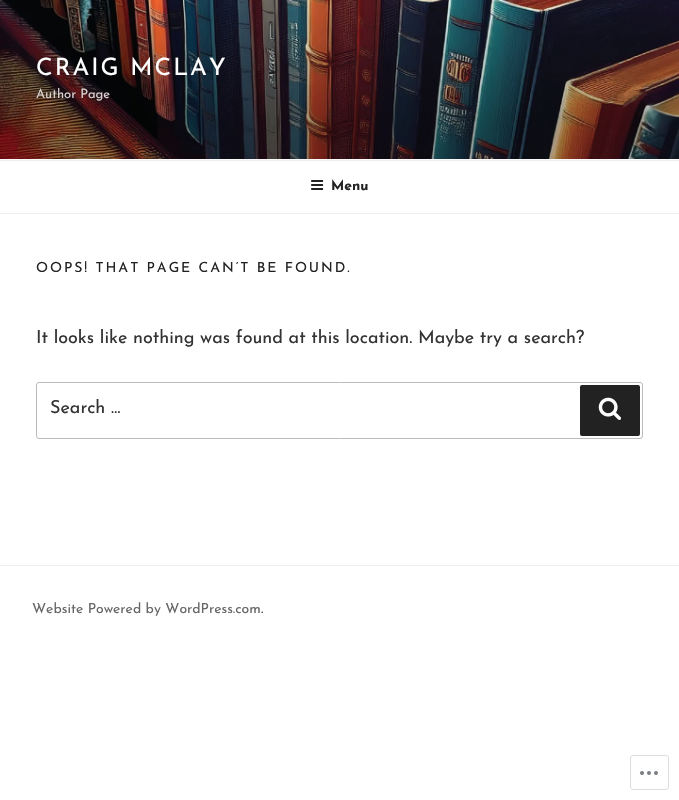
void draw(SkCanvas* canvas) {
    SkPaint paint;
    paint.setAntiAlias(true);
    auto face = [&](const char* family, int weight, float size, bool italic = false) {
        SkFontStyle style(weight, SkFontStyle::kNormal_Width,
            italic ? SkFontStyle::kItalic_Slant : SkFontStyle::kUpright_Slant);
        SkFont result(fontMgr->matchFamilyStyle(family, style), size);
        result.setSubpixel(true);
        return result;
    };
    auto write = [&](const char* s, float x, float y, const SkFont& font, SkColor color) {
        SkPaint ink(SkColor4f::FromColor(color));
        ink.setAntiAlias(true);
        canvas->drawString(s, x, y, font, ink);
    };
    auto writeSpaced = [&](const char* s, float x, float y, const SkFont& font, const SkPaint& ink, float letter, float word) {
        std::vector<SkGlyphID> glyphs(font.countText(s, strlen(s), SkTextEncoding::kUTF8));
        std::vector<float> xs(glyphs.size());
        font.textToGlyphs(s, strlen(s), SkTextEncoding::kUTF8, glyphs);
        font.getXPos(glyphs, xs, x);
        float extra = 0;
        for (size_t i = 0; i < glyphs.size(); i++) {
            xs[i] += extra;
            extra += letter + word * (glyphs[i] == font.unicharToGlyph(' '));
        }
        canvas->drawTextBlob(SkTextBlob::MakeFromPosHGlyphs(glyphs, xs, y, font), 0, 0, ink);
    };
    auto block = [&](float x, float y, float w, float h, SkColor color) {
        SkPaint ink(SkColor4f::FromColor(color));
        ink.setAntiAlias(true);
        canvas->drawRect(SkRect::MakeXYWH(x, y, w, h), ink);
    };
    auto card = [&](float x, float y, float w, float h, float radius, SkColor color) {
        SkPaint ink(SkColor4f::FromColor(color));
        ink.setAntiAlias(true);
        canvas->drawRoundRect(SkRect::MakeXYWH(x, y, w, h), radius, radius, ink);
    };
    auto paste = [&](const char* path, float x, float y, float w, float h) {
        auto image = SkImages::DeferredFromEncodedData(SkData::MakeFromFileName(path));
        canvas->drawImageRect(image, SkRect::MakeXYWH(x, y, w, h), SkSamplingOptions());
    };
    canvas->clear(SK_ColorWHITE);
    block(0, 159, 679, 1, SkColorSetRGB(250, 250, 250));
    paste("pic1.png", 0, 0, 679, 159);
    auto kFont1 = face("Josefin Sans", 400, 24);
    paint.setColor(SK_ColorWHITE);
    writeSpaced("CRAIG MCLAY", 36, 75, kFont1, paint, 2, 0);
    auto kFont2 = face("Josefin Sans", 400, 13);
    write("Author Page", 36, 98, kFont2, SkColorSetRGB(215, 210, 209));
    block(0, 160, 679, 1, SkColorSetRGB(238, 238, 238));
    block(0, 213, 679, 1, SkColorSetRGB(238, 238, 238));
    paste("pic2.png", 311, 180, 13, 10);
    auto kFont3 = face("Josefin Sans", 700, 14);
    write("Menu", 331, 190, kFont3, SkColorSetRGB(34, 34, 34));
    auto kFont4 = face("Josefin Sans", 400, 14);
    paint.setColor(SkColorSetRGB(34, 34, 34));
    writeSpaced("OOPS! THAT PAGE CAN’T BE FOUND.", 36, 272, kFont4, paint, 1.95f, 0);
    auto kFont5 = face("Josefin Sans", 400, 18);
    write("It looks like nothing was found at this location. Maybe try a search?", 36, 343, kFont5, SkColorSetRGB(51, 51, 51));
    paint.setStyle(SkPaint::kStroke_Style);
    paint.setStrokeWidth(1);
    paint.setColor(SkColorSetRGB(187, 187, 187));
    canvas->drawRoundRect(SkRect::MakeXYWH(36.5f, 382.5f, 606, 56), 2.5f, 2.5f, paint);
    write("Search …", 50, 413, kFont5, SkColorSetRGB(51, 51, 51));
    card(580, 385, 60, 51, 2, SkColorSetRGB(34, 34, 34));
    paste("pic3.png", 598, 397, 23, 23);
    block(0, 565, 679, 1, SkColorSetRGB(238, 238, 238));
    write("Website Powered by WordPress.com", 32, 613, kFont4, SkColorSetRGB(102, 102, 102));
    write(".", 261, 613, kFont4, SkColorSetRGB(51, 51, 51));
    paint.setColor(SkColorSetRGB(221, 221, 223));
    canvas->drawRoundRect(SkRect::MakeXYWH(630.5f, 755.5f, 38, 34), 2.5f, 2.5f, paint);
    paste("pic4.png", 640, 771, 18, 4);
}
